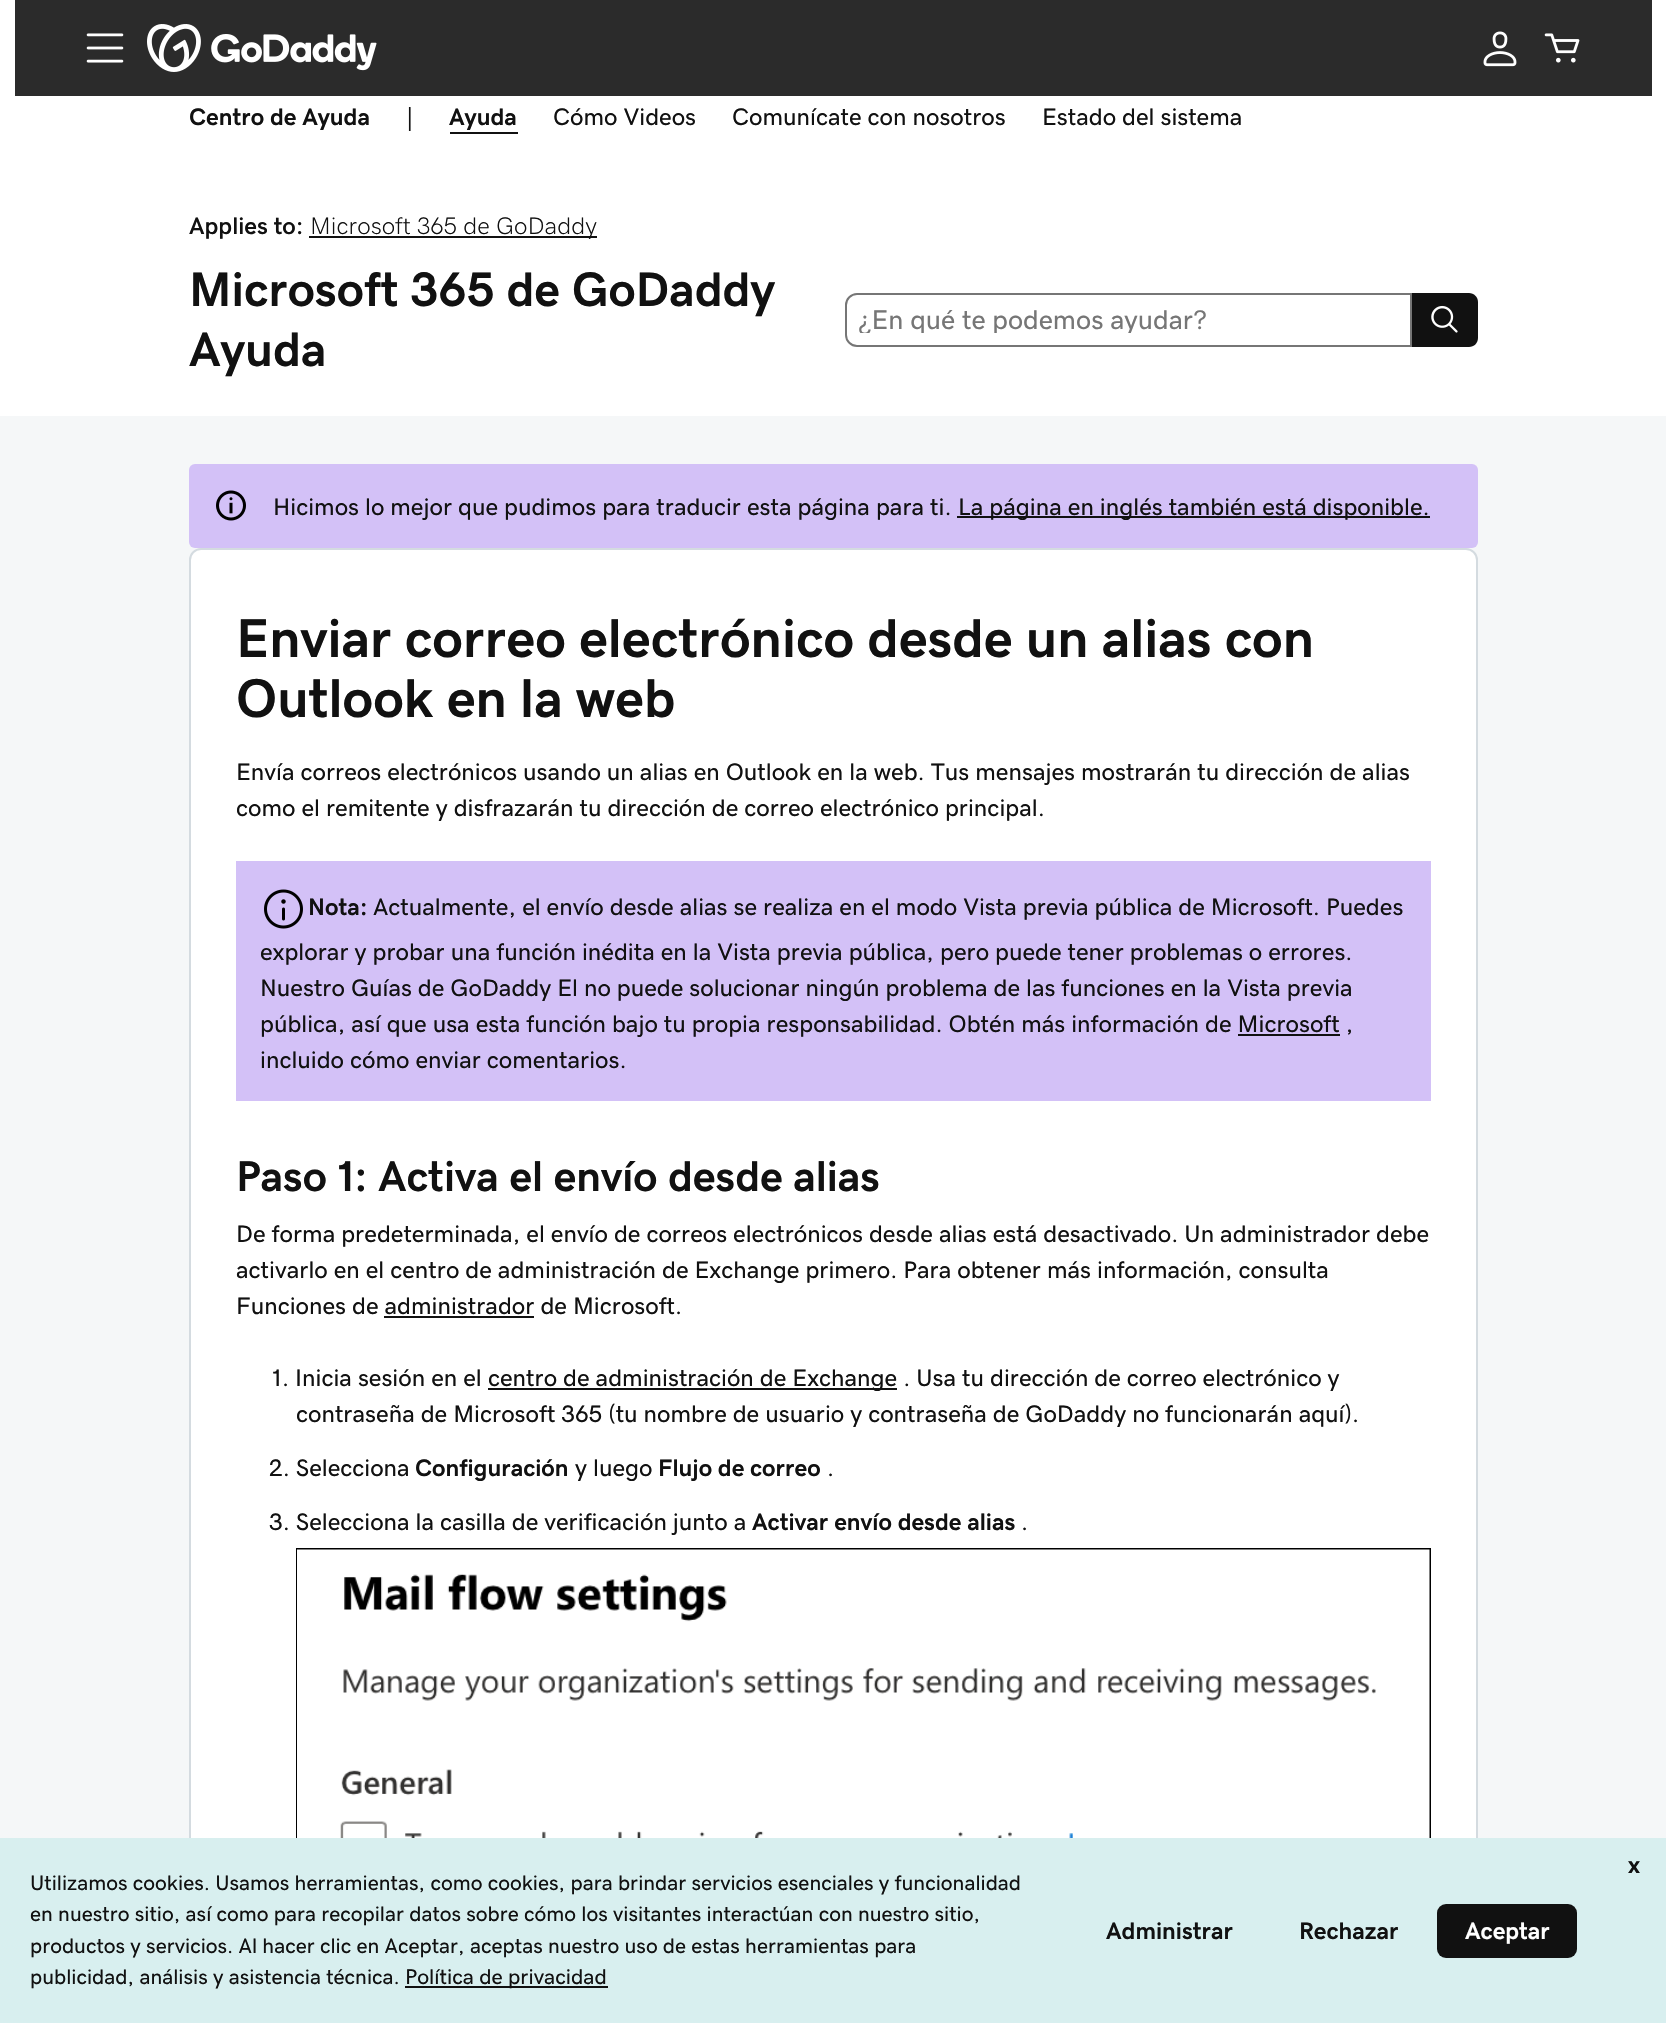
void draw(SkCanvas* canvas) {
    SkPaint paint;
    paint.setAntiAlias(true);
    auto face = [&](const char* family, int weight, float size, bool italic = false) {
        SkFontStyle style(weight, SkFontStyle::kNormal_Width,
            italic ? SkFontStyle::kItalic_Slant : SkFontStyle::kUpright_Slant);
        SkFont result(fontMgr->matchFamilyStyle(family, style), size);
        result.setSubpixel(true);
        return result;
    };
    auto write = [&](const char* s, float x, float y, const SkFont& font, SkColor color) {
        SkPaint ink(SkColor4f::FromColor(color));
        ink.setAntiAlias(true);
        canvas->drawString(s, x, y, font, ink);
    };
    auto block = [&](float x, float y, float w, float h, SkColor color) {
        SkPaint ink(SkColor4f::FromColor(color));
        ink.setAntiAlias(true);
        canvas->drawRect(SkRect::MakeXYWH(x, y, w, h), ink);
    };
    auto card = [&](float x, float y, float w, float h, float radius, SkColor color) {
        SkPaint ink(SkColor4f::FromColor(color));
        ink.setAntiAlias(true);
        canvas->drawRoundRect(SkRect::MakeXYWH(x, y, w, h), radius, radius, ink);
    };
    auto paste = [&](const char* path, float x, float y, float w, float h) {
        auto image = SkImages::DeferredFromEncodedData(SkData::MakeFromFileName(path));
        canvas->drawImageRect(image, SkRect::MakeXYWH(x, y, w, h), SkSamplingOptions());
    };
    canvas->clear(SK_ColorWHITE);
    block(15, 0, 1637, 96, SkColorSetRGB(43, 43, 43));
    paste("pic1.png", 86, 33, 38, 30);
    paste("pic2.png", 147, 24, 230, 48);
    paste("pic3.png", 1483, 31, 34, 36);
    paste("pic4.png", 1544, 33, 36, 30);
    auto kFont1 = face("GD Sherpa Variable", 700, 24);
    write("Centro de Ayuda", 189, 125, kFont1, SkColorSetRGB(17, 17, 17));
    auto kFont2 = face("GD Sherpa Variable", 400, 24);
    write("|", 406, 125, kFont2, SkColorSetRGB(17, 17, 17));
    write("Ayuda", 449, 125, kFont1, SkColorSetRGB(17, 17, 17));
    block(450, 132, 68, 2, SkColorSetRGB(17, 17, 17));
    write("Cómo Videos", 553, 125, kFont2, SkColorSetRGB(17, 17, 17));
    write("Comunícate con nosotros", 732, 125, kFont2, SkColorSetRGB(17, 17, 17));
    write("Estado del sistema", 1042, 125, kFont2, SkColorSetRGB(17, 17, 17));
    auto kFont3 = face("GD Sherpa Variable", 600, 24);
    write("Applies to:", 189, 234, kFont3, SkColorSetRGB(17, 17, 17));
    block(309, 236, 288, 2, SkColorSetRGB(17, 17, 17));
    auto kFont4 = face("GD Sherpa Variable", 200, 24);
    write("Microsoft 365 de GoDaddy", 310, 234, kFont4, SkColorSetRGB(17, 17, 17));
    auto kFont5 = face("GD Sherpa Variable", 700, 48.6f);
    write("Microsoft 365 de GoDaddy", 189, 306, kFont5, SkColorSetRGB(17, 17, 17));
    write("Ayuda", 189, 366, kFont5, SkColorSetRGB(17, 17, 17));
    paint.setStyle(SkPaint::kStroke_Style);
    paint.setStrokeWidth(2);
    paint.setColor(SkColorSetRGB(118, 118, 118));
    canvas->drawPath(SkPathBuilder().moveTo(857, 294).lineTo(1411, 294).lineTo(1411, 346).lineTo(857, 346).cubicTo(851, 346, 846, 341, 846, 335).lineTo(846, 305).cubicTo(846, 299, 851, 294, 857, 294).close().detach(), paint);
    canvas->save();
    canvas->clipRect(SkRect::MakeXYWH(858, 306, 540, 27));
    auto kFont6 = face("GD Sherpa Variable", 400, 27);
    write("¿En qué te podemos ayudar?", 858, 329, kFont6, SkColorSetRGB(118, 118, 118));
    canvas->restore();
    paint.setStyle(SkPaint::kFill_Style);
    paint.setColor(SkColorSetRGB(17, 17, 17));
    canvas->drawPath(SkPathBuilder().moveTo(1412, 293).lineTo(1469, 293).cubicTo(1474, 293, 1478, 297, 1478, 302).lineTo(1478, 338).cubicTo(1478, 343, 1474, 347, 1469, 347).lineTo(1412, 347).close().detach(), paint);
    paste("pic5.png", 1431, 305, 27, 28);
    block(0, 416, 1666, 1422, SkColorSetRGB(245, 247, 248));
    card(189, 464, 1289, 84, 6, SkColorSetRGB(211, 193, 247));
    paste("pic6.png", 216, 490, 30, 31);
    write("Hicimos lo mejor que pudimos para traducir esta página para ti.", 273, 515, kFont2, SkColorSetRGB(17, 17, 17));
    block(957, 516, 473, 2, SkColorSetRGB(17, 17, 17));
    write("La página en inglés también está disponible.", 958, 515, kFont2, SkColorSetRGB(17, 17, 17));
    paint.setColor(SK_ColorWHITE);
    canvas->drawRoundRect(SkRect::MakeXYWH(190, 549, 1287, 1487), 11, 11, paint);
    paint.setStyle(SkPaint::kStroke_Style);
    paint.setColor(SkColorSetRGB(212, 219, 224));
    canvas->drawRoundRect(SkRect::MakeXYWH(190, 549, 1287, 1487), 11, 11, paint);
    auto kFont7 = face("GD Sherpa Variable", 800, 54.75f);
    write("Enviar correo electrónico desde un alias con", 236, 657, kFont7, SkColorSetRGB(17, 17, 17));
    write("Outlook en la web", 236, 717, kFont7, SkColorSetRGB(17, 17, 17));
    write("Envía correos electrónicos usando un alias en Outlook en la web. Tus mensajes mostrarán tu dirección de alias", 236, 780, kFont2, SkColorSetRGB(17, 17, 17));
    write("como el remitente y disfrazarán tu dirección de correo electrónico principal.", 236, 816, kFont2, SkColorSetRGB(17, 17, 17));
    block(236, 861, 1195, 240, SkColorSetRGB(211, 193, 247));
    paste("pic7.png", 264, 889, 39, 40);
    write("Nota:", 308, 915, kFont1, SkColorSetRGB(17, 17, 17));
    write("Actualmente, el envío desde alias se realiza en el modo Vista previa pública de Microsoft. Puedes", 373, 915, kFont2, SkColorSetRGB(17, 17, 17));
    write("explorar y probar una función inédita en la Vista previa pública, pero puede tener problemas o errores.", 260, 960, kFont2, SkColorSetRGB(17, 17, 17));
    write("Nuestro Guías de GoDaddy El no puede solucionar ningún problema de las funciones en la Vista previa", 260, 996, kFont2, SkColorSetRGB(17, 17, 17));
    write("pública, así que usa esta función bajo tu propia responsabilidad. Obtén más información de Microsoft ,", 260, 1032, kFont2, SkColorSetRGB(17, 17, 17));
    block(1238, 1034, 102, 2, SkColorSetRGB(17, 17, 17));
    write("incluido cómo enviar comentarios.", 260, 1068, kFont2, SkColorSetRGB(17, 17, 17));
    auto kFont8 = face("GD Sherpa Variable", 800, 43.25f);
    write("Paso 1: Activa el envío desde alias", 236, 1191, kFont8, SkColorSetRGB(17, 17, 17));
    write("De forma predeterminada, el envío de correos electrónicos desde alias está desactivado. Un administrador debe", 236, 1242, kFont2, SkColorSetRGB(17, 17, 17));
    write("activarlo en el centro de administración de Exchange primero. Para obtener más información, consulta", 236, 1278, kFont2, SkColorSetRGB(17, 17, 17));
    write("Funciones de administrador de Microsoft.", 236, 1314, kFont2, SkColorSetRGB(17, 17, 17));
    block(384, 1316, 150, 2, SkColorSetRGB(17, 17, 17));
    write("1. Inicia sesión en el", 271, 1386, kFont2, SkColorSetRGB(17, 17, 17));
    block(488, 1388, 409, 2, SkColorSetRGB(17, 17, 17));
    write("centro de administración de Exchange . Usa tu dirección de correo electrónico y", 488, 1386, kFont2, SkColorSetRGB(17, 17, 17));
    write("contraseña de Microsoft 365 (tu nombre de usuario y contraseña de GoDaddy no funcionarán aquí).", 296, 1422, kFont2, SkColorSetRGB(17, 17, 17));
    write("2. Selecciona", 269, 1476, kFont2, SkColorSetRGB(17, 17, 17));
    write("Configuración", 415, 1476, kFont1, SkColorSetRGB(17, 17, 17));
    write("y luego", 575, 1476, kFont2, SkColorSetRGB(17, 17, 17));
    write("Flujo de correo", 658, 1476, kFont1, SkColorSetRGB(17, 17, 17));
    write(".", 827, 1476, kFont2, SkColorSetRGB(17, 17, 17));
    write("3. Selecciona la casilla de verificación junto a", 269, 1530, kFont2, SkColorSetRGB(17, 17, 17));
    write("Activar envío desde alias", 752, 1530, kFont1, SkColorSetRGB(17, 17, 17));
    write(".", 1021, 1530, kFont2, SkColorSetRGB(17, 17, 17));
    paint.setColor(SK_ColorBLACK);
    canvas->drawRect(SkRect::MakeXYWH(297, 1549, 1133, 469), paint);
    paste("pic8.png", 297, 1549, 1133, 289);
    block(0, 1838, 1666, 185, SkColorSetRGB(216, 239, 239));
    auto kFont9 = face("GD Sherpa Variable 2", 700, 24);
    write("x", 1628, 1873, kFont9, SkColorSetRGB(17, 17, 17));
    auto kFont10 = face("GD Sherpa Variable", 400, 21);
    write("Utilizamos cookies. Usamos herramientas, como cookies, para brindar servicios esenciales y funcionalidad", 30, 1890, kFont10, SkColorSetRGB(17, 17, 17));
    write("en nuestro sitio, así como para recopilar datos sobre cómo los visitantes interactúan con nuestro sitio,", 30, 1921, kFont10, SkColorSetRGB(17, 17, 17));
    write("productos y servicios. Al hacer clic en Aceptar, aceptas nuestro uso de estas herramientas para", 30, 1953, kFont10, SkColorSetRGB(17, 17, 17));
    write("publicidad, análisis y asistencia técnica.", 30, 1984, kFont10, SkColorSetRGB(17, 17, 17));
    block(405, 1986, 203, 2, SkColorSetRGB(17, 17, 17));
    auto kFont11 = face("GD Sherpa Variable", 400, 21.25f);
    write("Política de privacidad", 405, 1984, kFont11, SkColorSetRGB(17, 17, 17));
    write("Administrar", 1106, 1939, kFont9, SkColorSetRGB(17, 17, 17));
    write("Rechazar", 1299, 1939, kFont9, SkColorSetRGB(17, 17, 17));
    card(1437, 1904, 140, 54, 9, SkColorSetRGB(17, 17, 17));
    write("Aceptar", 1465, 1939, kFont9, SK_ColorWHITE);
}
